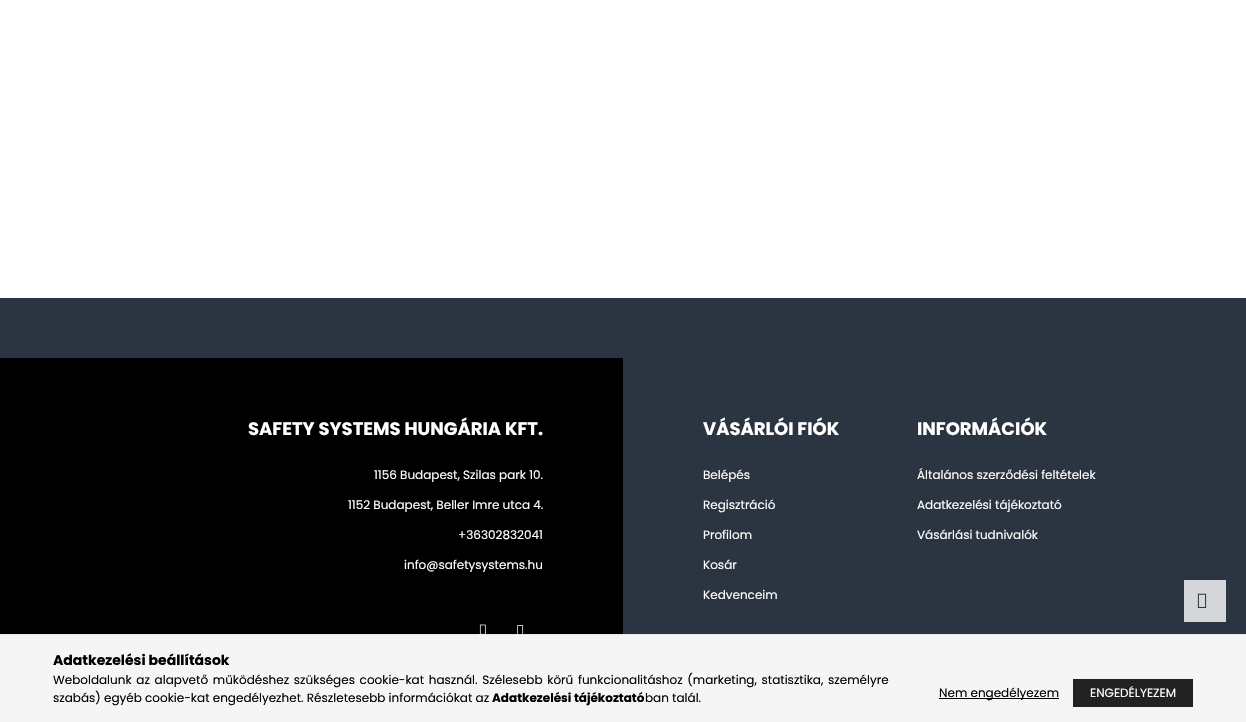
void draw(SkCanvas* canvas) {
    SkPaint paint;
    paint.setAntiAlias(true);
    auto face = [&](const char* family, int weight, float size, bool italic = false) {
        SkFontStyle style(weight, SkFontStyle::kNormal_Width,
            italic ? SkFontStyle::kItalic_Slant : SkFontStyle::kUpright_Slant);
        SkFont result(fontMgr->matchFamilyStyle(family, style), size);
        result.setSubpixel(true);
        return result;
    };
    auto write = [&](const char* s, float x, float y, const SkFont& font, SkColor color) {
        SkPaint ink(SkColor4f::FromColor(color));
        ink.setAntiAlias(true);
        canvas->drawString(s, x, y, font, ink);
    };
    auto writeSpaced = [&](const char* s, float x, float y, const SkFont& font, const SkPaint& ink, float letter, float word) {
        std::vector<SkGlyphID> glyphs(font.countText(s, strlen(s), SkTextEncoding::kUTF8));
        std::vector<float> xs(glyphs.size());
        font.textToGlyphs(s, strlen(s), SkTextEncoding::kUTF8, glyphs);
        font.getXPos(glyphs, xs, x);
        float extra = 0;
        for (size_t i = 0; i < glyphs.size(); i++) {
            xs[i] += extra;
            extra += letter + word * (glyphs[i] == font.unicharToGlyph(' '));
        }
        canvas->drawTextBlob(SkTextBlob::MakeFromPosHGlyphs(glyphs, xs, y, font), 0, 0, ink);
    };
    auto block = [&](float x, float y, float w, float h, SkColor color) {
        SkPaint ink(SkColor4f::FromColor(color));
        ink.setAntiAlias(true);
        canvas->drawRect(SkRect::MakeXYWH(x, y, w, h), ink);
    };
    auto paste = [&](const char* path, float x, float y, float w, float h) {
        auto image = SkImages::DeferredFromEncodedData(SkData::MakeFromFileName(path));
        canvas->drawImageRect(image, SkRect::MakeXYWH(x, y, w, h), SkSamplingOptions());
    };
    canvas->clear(SK_ColorWHITE);
    block(0, 298, 1246, 336, SkColorSetRGB(43, 52, 65));
    block(0, 358, 623, 276, SK_ColorBLACK);
    auto kFont1 = face("Poppins", 700, 18);
    write("SAFETY SYSTEMS HUNGÁRIA KFT.", 248, 435, kFont1, SK_ColorWHITE);
    auto kFont2 = face("Poppins", 400, 12);
    write("1156 Budapest, Szilas park 10.", 374, 479, kFont2, SK_ColorWHITE);
    write("1152 Budapest, Beller Imre utca 4.", 348, 509, kFont2, SK_ColorWHITE);
    write("+36302832041", 458, 539, kFont2, SK_ColorWHITE);
    write("info@safetysystems.hu", 404, 569, kFont2, SK_ColorWHITE);
    paste("pic1.png", 479, 624, 7, 10);
    paste("pic2.png", 517, 625, 7, 9);
    write("VÁSÁRLÓI FIÓK", 703, 435, kFont1, SK_ColorWHITE);
    write("Belépés", 703, 479, kFont2, SK_ColorWHITE);
    write("Regisztráció", 703, 509, kFont2, SK_ColorWHITE);
    write("Profilom", 703, 539, kFont2, SK_ColorWHITE);
    write("Kosár", 703, 569, kFont2, SK_ColorWHITE);
    write("Kedvenceim", 703, 599, kFont2, SK_ColorWHITE);
    write("INFORMÁCIÓK", 917, 435, kFont1, SK_ColorWHITE);
    write("Általános szerződési feltételek", 917, 479, kFont2, SK_ColorWHITE);
    write("Adatkezelési tájékoztató", 917, 509, kFont2, SK_ColorWHITE);
    write("Vásárlási tudnivalók", 917, 539, kFont2, SK_ColorWHITE);
    block(1184, 580, 42, 42, SkColorSetRGB(213, 214, 217));
    paste("pic3.png", 1197, 593, 10, 15);
    block(0, 635, 1246, 87, SkColorSetRGB(245, 245, 245));
    block(0, 634, 1246, 1, SkColorSetRGB(234, 234, 234));
    auto kFont3 = face("Poppins", 700, 14);
    write("Adatkezelési beállítások", 53, 665, kFont3, SK_ColorBLACK);
    paint.setColor(SK_ColorBLACK);
    writeSpaced("Weboldalunk az alapvető működéshez szükséges cookie-kat használ. Szélesebb körű funkcionalitáshoz (marketing, statisztika, személyre", 53, 684, kFont2, paint, 0, 1.5f);
    write("szabás) egyéb cookie-kat engedélyezhet. Részletesebb információkat az", 53, 702, kFont2, SK_ColorBLACK);
    auto kFont4 = face("Poppins", 700, 12);
    write("Adatkezelési tájékoztató", 492, 702, kFont4, SK_ColorBLACK);
    write("ban talál.", 645, 702, kFont2, SK_ColorBLACK);
    block(939, 698, 120, 1, SK_ColorBLACK);
    write("Nem engedélyezem", 939, 697, kFont2, SK_ColorBLACK);
    {
        const SkColor colors[] = {SkColorSetRGB(43, 53, 65), SkColorSetRGB(43, 53, 65), SkColorSetRGB(34, 34, 34), SkColorSetRGB(34, 34, 34)};
        const float stops[] = {0, 0.33f, 0.67f, 1};
        const SkPoint ends[] = {{833, 693}, {1193, 693}};
        paint.setShader(SkGradientShader::MakeLinear(ends, colors, stops, 4, SkTileMode::kClamp));
        paint.setAlpha(255);
    }
    canvas->drawRect(SkRect::MakeXYWH(1073, 679, 120, 28), paint);
    write("ENGEDÉLYEZEM", 1090, 697, kFont2, SK_ColorWHITE);
}
